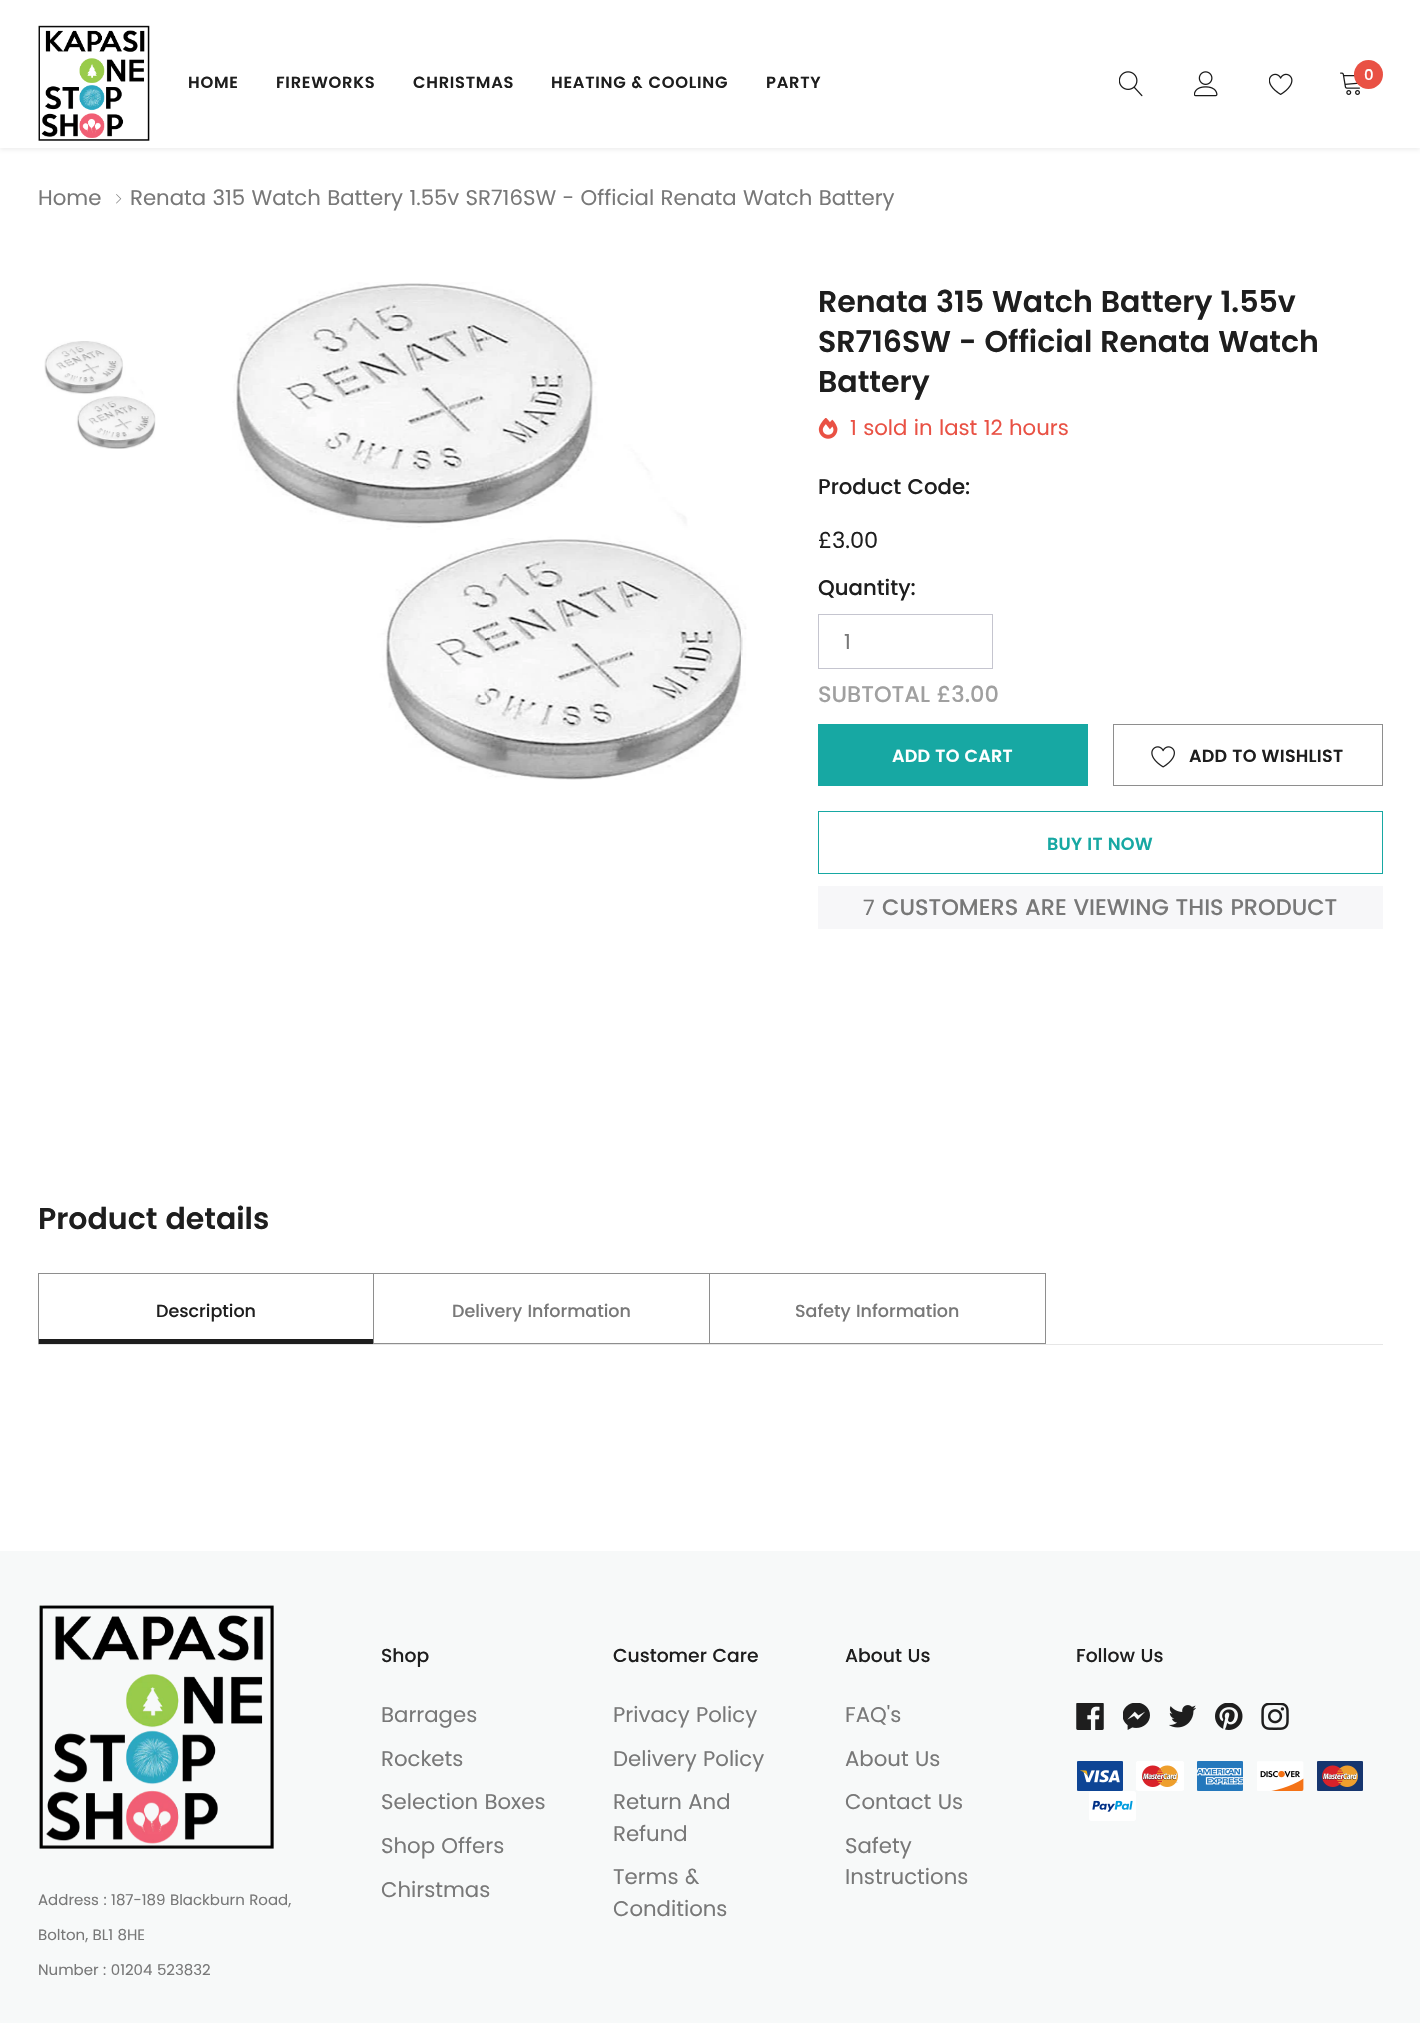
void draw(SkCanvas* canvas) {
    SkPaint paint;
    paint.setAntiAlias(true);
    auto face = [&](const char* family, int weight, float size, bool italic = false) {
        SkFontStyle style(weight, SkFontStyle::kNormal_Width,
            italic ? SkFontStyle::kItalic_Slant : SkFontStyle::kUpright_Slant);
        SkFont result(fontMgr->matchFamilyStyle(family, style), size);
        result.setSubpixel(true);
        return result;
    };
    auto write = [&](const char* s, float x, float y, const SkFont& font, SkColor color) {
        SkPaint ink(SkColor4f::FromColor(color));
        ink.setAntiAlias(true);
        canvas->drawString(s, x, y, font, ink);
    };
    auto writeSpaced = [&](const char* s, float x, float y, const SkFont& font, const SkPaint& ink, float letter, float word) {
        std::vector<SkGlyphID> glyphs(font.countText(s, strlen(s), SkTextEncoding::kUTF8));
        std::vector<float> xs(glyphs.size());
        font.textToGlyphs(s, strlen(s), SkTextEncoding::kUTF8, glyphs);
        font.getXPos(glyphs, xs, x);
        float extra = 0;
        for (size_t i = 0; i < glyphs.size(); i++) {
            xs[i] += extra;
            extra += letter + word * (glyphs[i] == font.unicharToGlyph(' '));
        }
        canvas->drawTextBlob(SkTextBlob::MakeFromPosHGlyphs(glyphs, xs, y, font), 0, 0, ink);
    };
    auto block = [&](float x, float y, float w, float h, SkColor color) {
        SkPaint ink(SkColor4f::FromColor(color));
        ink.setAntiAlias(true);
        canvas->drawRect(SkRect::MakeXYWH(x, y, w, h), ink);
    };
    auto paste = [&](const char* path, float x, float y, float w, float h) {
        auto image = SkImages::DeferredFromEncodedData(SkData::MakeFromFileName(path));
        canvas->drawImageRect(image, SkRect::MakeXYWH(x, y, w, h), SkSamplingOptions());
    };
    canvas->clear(SK_ColorWHITE);
    canvas->save();
    canvas->clipRect(SkRect::MakeXYWH(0, 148, 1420, 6));
    paint.setColor(SkColorSetRGB(239, 239, 239));
    paint.setMaskFilter(SkMaskFilter::MakeBlur(kNormal_SkBlurStyle, 2));
    canvas->drawRect(SkRect::MakeXYWH(0, -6, 1420, 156), paint);
    paint.setMaskFilter(nullptr);
    canvas->restore();
    block(0, 147, 1420, 1, SK_ColorWHITE);
    paste("pic1.png", 1119, 71, 24, 26);
    paste("pic2.png", 1194, 71, 24, 26);
    paste("pic3.png", 1269, 73, 24, 22);
    paste("pic4.png", 1340, 72, 20, 23);
    paint.setColor(SkColorSetRGB(233, 81, 68));
    canvas->drawCircle(1368.5f, 74.5f, 14.5f, paint);
    auto kFont1 = face("Poppins", 500, 15);
    write("0", 1364, 80, kFont1, SK_ColorWHITE);
    paste("pic5.png", 38, 25, 112, 116);
    auto kFont2 = face("Poppins", 600, 16.25f);
    paint.setColor(SkColorSetRGB(30, 30, 30));
    writeSpaced("HOME", 188, 88, kFont2, paint, 0.75f, 0);
    writeSpaced("FIREWORKS", 276, 88, kFont2, paint, 0.75f, 0);
    writeSpaced("CHRISTMAS", 413, 88, kFont2, paint, 0.75f, 0);
    writeSpaced("HEATING & COOLING", 551, 88, kFont2, paint, 0.75f, 0);
    writeSpaced("PARTY", 766, 88, kFont2, paint, 0.75f, 0);
    auto kFont3 = face("Poppins", 400, 21.25f);
    write("Home", 38, 205, kFont3, SkColorSetRGB(120, 120, 120));
    paste("pic6.png", 116, 194, 6, 10);
    write("Renata 315 Watch Battery 1.55v SR716SW - Official Renata Watch Battery", 130, 205, kFont3, SkColorSetRGB(120, 120, 120));
    paste("pic7.png", 44, 341, 112, 108);
    paste("pic8.png", 232, 282, 515, 498);
    auto kFont4 = face("Poppins", 600, 30);
    write("Renata 315 Watch Battery 1.55v", 818, 312, kFont4, SkColorSetRGB(30, 30, 30));
    write("SR716SW - Official Renata Watch", 818, 352, kFont4, SkColorSetRGB(30, 30, 30));
    write("Battery", 818, 392, kFont4, SkColorSetRGB(30, 30, 30));
    paste("pic9.png", 818, 418, 20, 21);
    write("1 sold in last 12 hours", 850, 435, kFont3, SkColorSetRGB(233, 81, 68));
    auto kFont5 = face("Poppins", 500, 21.25f);
    write("Product Code:", 818, 494, kFont5, SkColorSetRGB(30, 30, 30));
    auto kFont6 = face("Poppins", 400, 22.5f);
    write("£3.00", 818, 548, kFont6, SkColorSetRGB(30, 30, 30));
    write("Quantity:", 818, 595, kFont5, SkColorSetRGB(30, 30, 30));
    paint.setStyle(SkPaint::kStroke_Style);
    paint.setStrokeWidth(1);
    paint.setColor(SkColorSetRGB(197, 197, 207));
    canvas->drawRect(SkRect::MakeXYWH(818.5f, 614.5f, 174, 54), paint);
    write("1", 844, 649, kFont3, SkColorSetRGB(120, 120, 120));
    auto kFont7 = face("Poppins", 500, 22.5f);
    write("SUBTOTAL £3.00", 818, 702, kFont7, SkColorSetRGB(160, 160, 160));
    block(818, 724, 270, 62, SkColorSetRGB(23, 168, 163));
    auto kFont8 = face("Poppins", 600, 17.5f);
    paint.setStyle(SkPaint::kFill_Style);
    paint.setColor(SK_ColorWHITE);
    writeSpaced("ADD TO CART", 892, 762, kFont8, paint, 0.25f, 0);
    paint.setStyle(SkPaint::kStroke_Style);
    paint.setColor(SkColorSetRGB(142, 142, 142));
    canvas->drawRect(SkRect::MakeXYWH(1113.5f, 724.5f, 269, 61), paint);
    paste("pic10.png", 1151, 746, 24, 22);
    paint.setStyle(SkPaint::kFill_Style);
    paint.setColor(SkColorSetRGB(30, 30, 30));
    writeSpaced("ADD TO WISHLIST", 1189, 762, kFont8, paint, 0.25f, 0);
    paint.setStyle(SkPaint::kStroke_Style);
    paint.setColor(SkColorSetRGB(23, 168, 163));
    canvas->drawRect(SkRect::MakeXYWH(818.5f, 811.5f, 564, 62), paint);
    paint.setStyle(SkPaint::kFill_Style);
    writeSpaced("BUY IT NOW", 1047, 850, kFont8, paint, 0.25f, 0);
    block(818, 886, 565, 43, SkColorSetRGB(247, 247, 249));
    write("7", 863, 915, kFont3, SkColorSetRGB(120, 120, 120));
    write("CUSTOMERS ARE VIEWING THIS PRODUCT", 882, 915, kFont7, SkColorSetRGB(120, 120, 120));
    write("Product details", 38, 1229, kFont4, SkColorSetRGB(30, 30, 30));
    block(38, 1344, 1345, 1, SkColorSetRGB(230, 230, 230));
    paint.setStyle(SkPaint::kStroke_Style);
    paint.setColor(SkColorSetRGB(142, 142, 142));
    canvas->drawRect(SkRect::MakeXYWH(38.5f, 1273.5f, 335, 70), paint);
    auto kFont9 = face("Poppins", 500, 17.5f);
    write("Description", 156, 1317, kFont9, SkColorSetRGB(30, 30, 30));
    block(39, 1339, 334, 5, SkColorSetRGB(30, 30, 30));
    block(374, 1273, 672, 1, SkColorSetRGB(142, 142, 142));
    block(709, 1273, 1, 71, SkColorSetRGB(142, 142, 142));
    block(374, 1343, 336, 1, SkColorSetRGB(142, 142, 142));
    write("Delivery Information", 452, 1317, kFont9, SkColorSetRGB(120, 120, 120));
    block(1045, 1273, 1, 71, SkColorSetRGB(142, 142, 142));
    block(710, 1343, 336, 1, SkColorSetRGB(142, 142, 142));
    write("Safety Information", 795, 1317, kFont9, SkColorSetRGB(120, 120, 120));
    block(0, 1551, 1420, 472, SkColorSetRGB(247, 249, 249));
    auto kFont10 = face("Poppins", 500, 18.75f);
    write("Shop", 381, 1662, kFont10, SkColorSetRGB(30, 30, 30));
    write("Barrages", 381, 1722, kFont3, SkColorSetRGB(120, 120, 120));
    write("Rockets", 381, 1766, kFont3, SkColorSetRGB(120, 120, 120));
    write("Selection Boxes", 381, 1809, kFont3, SkColorSetRGB(120, 120, 120));
    write("Shop Offers", 381, 1853, kFont3, SkColorSetRGB(120, 120, 120));
    write("Chirstmas", 381, 1897, kFont3, SkColorSetRGB(120, 120, 120));
    write("Customer Care", 613, 1662, kFont10, SkColorSetRGB(30, 30, 30));
    write("Privacy Policy", 613, 1722, kFont3, SkColorSetRGB(120, 120, 120));
    write("Delivery Policy", 613, 1766, kFont3, SkColorSetRGB(120, 120, 120));
    write("Return And", 613, 1809, kFont3, SkColorSetRGB(120, 120, 120));
    write("Refund", 613, 1841, kFont3, SkColorSetRGB(120, 120, 120));
    write("Terms &", 613, 1884, kFont3, SkColorSetRGB(120, 120, 120));
    write("Conditions", 613, 1916, kFont3, SkColorSetRGB(120, 120, 120));
    write("About Us", 845, 1662, kFont10, SkColorSetRGB(30, 30, 30));
    write("FAQ's", 845, 1722, kFont3, SkColorSetRGB(120, 120, 120));
    write("About Us", 845, 1766, kFont3, SkColorSetRGB(120, 120, 120));
    write("Contact Us", 845, 1809, kFont3, SkColorSetRGB(120, 120, 120));
    write("Safety", 845, 1853, kFont3, SkColorSetRGB(120, 120, 120));
    write("Instructions", 845, 1884, kFont3, SkColorSetRGB(120, 120, 120));
    write("Follow Us", 1076, 1662, kFont10, SkColorSetRGB(30, 30, 30));
    paste("pic11.png", 1076, 1703, 28, 27);
    paste("pic12.png", 1123, 1703, 27, 27);
    paste("pic13.png", 1169, 1705, 27, 23);
    paste("pic14.png", 1215, 1703, 28, 27);
    paste("pic15.png", 1261, 1703, 28, 27);
    paste("pic16.png", 1077, 1761, 46, 30);
    paste("pic17.png", 1136, 1761, 48, 30);
    paste("pic18.png", 1197, 1761, 46, 30);
    paste("pic19.png", 1257, 1761, 47, 30);
    paste("pic20.png", 1317, 1761, 46, 30);
    paste("pic21.png", 1089, 1791, 47, 30);
    paste("pic22.png", 39, 1605, 235, 244);
    auto kFont11 = face("Poppins", 400, 15);
    write("Address : 187-189 Blackburn Road,", 38, 1905, kFont11, SkColorSetRGB(120, 120, 120));
    write("Bolton, BL1 8HE", 38, 1940, kFont11, SkColorSetRGB(120, 120, 120));
    write("Number : 01204 523832", 38, 1975, kFont11, SkColorSetRGB(120, 120, 120));
}
